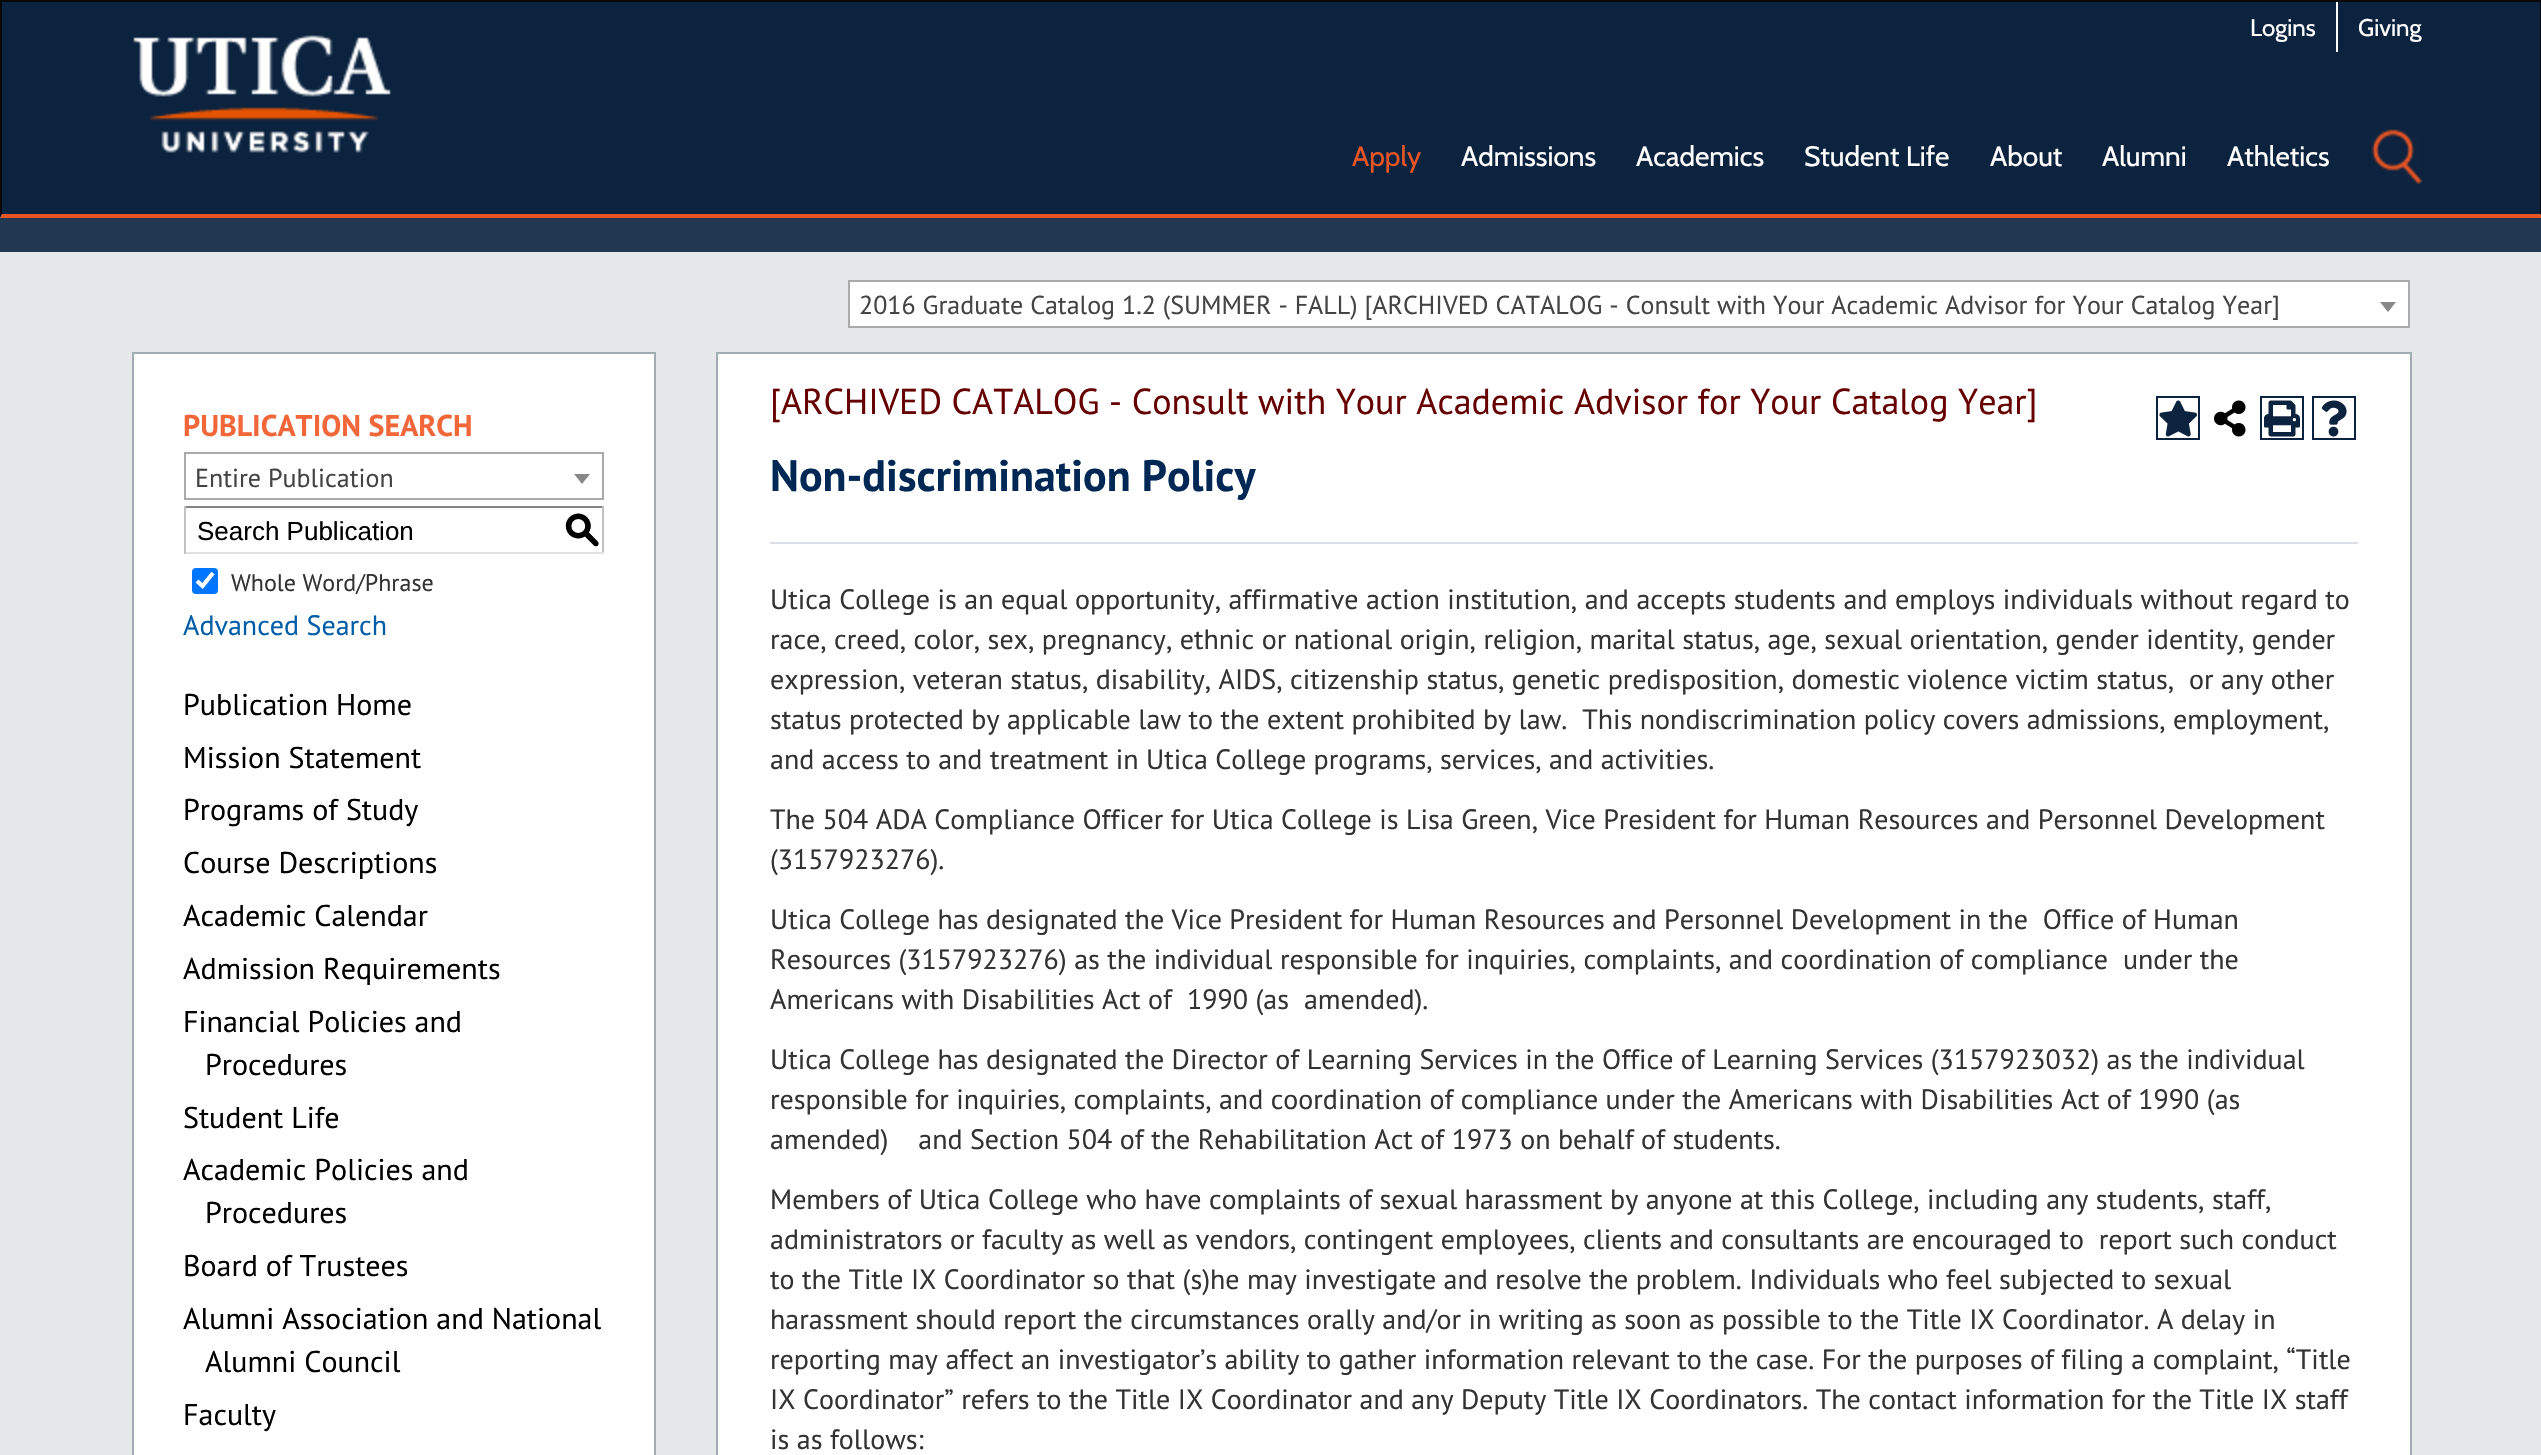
void draw(SkCanvas* canvas) {
    SkPaint paint;
    paint.setAntiAlias(true);
    auto face = [&](const char* family, int weight, float size, bool italic = false) {
        SkFontStyle style(weight, SkFontStyle::kNormal_Width,
            italic ? SkFontStyle::kItalic_Slant : SkFontStyle::kUpright_Slant);
        SkFont result(fontMgr->matchFamilyStyle(family, style), size);
        result.setSubpixel(true);
        return result;
    };
    auto write = [&](const char* s, float x, float y, const SkFont& font, SkColor color) {
        SkPaint ink(SkColor4f::FromColor(color));
        ink.setAntiAlias(true);
        canvas->drawString(s, x, y, font, ink);
    };
    auto block = [&](float x, float y, float w, float h, SkColor color) {
        SkPaint ink(SkColor4f::FromColor(color));
        ink.setAntiAlias(true);
        canvas->drawRect(SkRect::MakeXYWH(x, y, w, h), ink);
    };
    auto card = [&](float x, float y, float w, float h, float radius, SkColor color) {
        SkPaint ink(SkColor4f::FromColor(color));
        ink.setAntiAlias(true);
        canvas->drawRoundRect(SkRect::MakeXYWH(x, y, w, h), radius, radius, ink);
    };
    auto paste = [&](const char* path, float x, float y, float w, float h) {
        auto image = SkImages::DeferredFromEncodedData(SkData::MakeFromFileName(path));
        canvas->drawImageRect(image, SkRect::MakeXYWH(x, y, w, h), SkSamplingOptions());
    };
    canvas->clear(SkColorSetRGB(229, 231, 233));
    block(2, 2, 2538, 212, SkColorSetRGB(12, 35, 63));
    block(0, 0, 2541, 2, SkColorSetRGB(8, 8, 8));
    paint.setColor(SkColorSetRGB(8, 8, 8));
    canvas->drawPath(SkPathBuilder().moveTo(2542, 0).lineTo(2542, 218).lineTo(2540, 214).lineTo(2540, 2).close().detach(), paint);
    paint.setColor(SkColorSetRGB(231, 85, 37));
    canvas->drawPath(SkPathBuilder().moveTo(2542, 218).lineTo(0, 218).lineTo(2, 214).lineTo(2540, 214).close().detach(), paint);
    paint.setColor(SkColorSetRGB(8, 8, 8));
    canvas->drawPath(SkPathBuilder().moveTo(0, 218).lineTo(0, 0).lineTo(2, 2).lineTo(2, 214).close().detach(), paint);
    paste("pic1.png", 133, 35, 258, 118);
    block(2336, 2, 2, 50, SK_ColorWHITE);
    auto kFont1 = face("Cabin", 400, 24);
    write("Logins", 2250, 36, kFont1, SK_ColorWHITE);
    write("Giving", 2358, 36, kFont1, SK_ColorWHITE);
    auto kFont2 = face("Cabin", 400, 28);
    write("Apply", 1352, 166, kFont2, SkColorSetRGB(231, 85, 37));
    write("Admissions", 1461, 166, kFont2, SK_ColorWHITE);
    write("Academics", 1636, 166, kFont2, SK_ColorWHITE);
    write("Student Life", 1804, 166, kFont2, SK_ColorWHITE);
    write("About", 1990, 166, kFont2, SK_ColorWHITE);
    write("Alumni", 2102, 166, kFont2, SK_ColorWHITE);
    write("Athletics", 2227, 166, kFont2, SK_ColorWHITE);
    paste("pic2.png", 2371, 129, 51, 55);
    block(0, 218, 2541, 34, SkColorSetRGB(34, 55, 80));
    paint.setColor(SK_ColorWHITE);
    canvas->drawRect(SkRect::MakeXYWH(849, 281, 1560, 46), paint);
    paint.setStyle(SkPaint::kStroke_Style);
    paint.setStrokeWidth(2);
    paint.setColor(SkColorSetRGB(170, 170, 170));
    canvas->drawRect(SkRect::MakeXYWH(849, 281, 1560, 46), paint);
    auto kFont3 = face("PT Sans", 400, 26);
    write("2016 Graduate Catalog 1.2 (SUMMER - FALL) [ARCHIVED CATALOG - Consult with Your Academic Advisor for Your Catalog Year]", 859, 314, kFont3, SkColorSetRGB(68, 68, 68));
    paint.setStyle(SkPaint::kFill_Style);
    paint.setColor(SkColorSetRGB(136, 136, 136));
    canvas->drawPath(SkPathBuilder().moveTo(2380, 302).lineTo(2396, 302).lineTo(2388, 312).close().detach(), paint);
    paint.setColor(SK_ColorWHITE);
    canvas->drawRect(SkRect::MakeXYWH(133, 353, 522, 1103), paint);
    paint.setStyle(SkPaint::kStroke_Style);
    paint.setColor(SkColorSetRGB(161, 171, 178));
    canvas->drawRect(SkRect::MakeXYWH(133, 353, 522, 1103), paint);
    auto kFont4 = face("PT Sans", 700, 30);
    write("PUBLICATION SEARCH", 183, 436, kFont4, SkColorSetRGB(242, 103, 58));
    paint.setColor(SkColorSetRGB(170, 170, 170));
    canvas->drawRect(SkRect::MakeXYWH(185, 453, 418, 46), paint);
    write("Entire Publication", 195, 487, kFont3, SkColorSetRGB(68, 68, 68));
    paint.setStyle(SkPaint::kFill_Style);
    paint.setColor(SkColorSetRGB(136, 136, 136));
    canvas->drawPath(SkPathBuilder().moveTo(574, 474).lineTo(590, 474).lineTo(582, 484).close().detach(), paint);
    block(184, 506, 420, 2, SkColorSetRGB(132, 132, 132));
    block(602, 506, 2, 48, SkColorSetRGB(193, 193, 193));
    block(184, 552, 420, 2, SkColorSetRGB(225, 225, 225));
    block(184, 506, 2, 48, SkColorSetRGB(193, 193, 193));
    auto kFont5 = face("Liberation Sans", 400, 26);
    write("Search Publication", 197, 540, kFont5, SK_ColorBLACK);
    auto kFont6 = face("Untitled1", 500, 36);
    write("S", 564, 541, kFont6, SK_ColorBLACK);
    card(192, 568, 26, 26, 4, SkColorSetRGB(0, 117, 255));
    paint.setStyle(SkPaint::kStroke_Style);
    paint.setStrokeWidth(4.2f);
    paint.setColor(SK_ColorWHITE);
    canvas->drawPath(SkPathBuilder().moveTo(197, 581).lineTo(202.5f, 586).lineTo(213, 573).detach(), paint);
    auto kFont7 = face("PT Sans", 400, 24);
    write("Whole Word/Phrase", 231, 591, kFont7, SkColorSetRGB(51, 51, 51));
    auto kFont8 = face("PT Sans", 400, 28);
    write("Advanced Search", 183, 635, kFont8, SkColorSetRGB(0, 93, 166));
    auto kFont9 = face("PT Sans", 400, 30);
    write("Publication Home", 183, 715, kFont9, SK_ColorBLACK);
    write("Mission Statement", 183, 768, kFont9, SK_ColorBLACK);
    write("Programs of Study", 183, 820, kFont9, SK_ColorBLACK);
    write("Course Descriptions", 183, 873, kFont9, SK_ColorBLACK);
    write("Academic Calendar", 183, 926, kFont9, SK_ColorBLACK);
    write("Admission Requirements", 183, 979, kFont9, SK_ColorBLACK);
    write("Financial Policies and", 183, 1032, kFont9, SK_ColorBLACK);
    write("Procedures", 205, 1075, kFont9, SK_ColorBLACK);
    write("Student Life", 183, 1128, kFont9, SK_ColorBLACK);
    write("Academic Policies and", 183, 1180, kFont9, SK_ColorBLACK);
    write("Procedures", 205, 1223, kFont9, SK_ColorBLACK);
    write("Board of Trustees", 183, 1276, kFont9, SK_ColorBLACK);
    write("Alumni Association and National", 183, 1329, kFont9, SK_ColorBLACK);
    write("Alumni Council", 205, 1372, kFont9, SK_ColorBLACK);
    write("Faculty", 183, 1425, kFont9, SK_ColorBLACK);
    paint.setStyle(SkPaint::kFill_Style);
    canvas->drawRect(SkRect::MakeXYWH(717, 353, 1694, 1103), paint);
    paint.setStyle(SkPaint::kStroke_Style);
    paint.setStrokeWidth(2);
    paint.setColor(SkColorSetRGB(161, 171, 178));
    canvas->drawRect(SkRect::MakeXYWH(717, 353, 1694, 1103), paint);
    auto kFont10 = face("PT Sans", 400, 36);
    write("[ARCHIVED CATALOG - Consult with Your Academic Advisor for Your Catalog Year]", 770, 414, kFont10, SkColorSetRGB(102, 0, 0));
    paint.setColor(SkColorSetRGB(12, 35, 63));
    canvas->drawRect(SkRect::MakeXYWH(2157, 397, 42, 42), paint);
    paste("pic3.png", 2159, 400, 39, 37);
    paste("pic4.png", 2214, 400, 32, 37);
    canvas->drawRect(SkRect::MakeXYWH(2261, 397, 42, 42), paint);
    paste("pic5.png", 2264, 400, 36, 37);
    canvas->drawRect(SkRect::MakeXYWH(2313, 397, 42, 42), paint);
    paste("pic6.png", 2321, 400, 26, 37);
    auto kFont11 = face("PT Sans", 700, 44);
    write("Non-discrimination Policy", 770, 491, kFont11, SkColorSetRGB(0, 40, 84));
    block(770, 542, 1588, 2, SkColorSetRGB(217, 223, 231));
    write("Utica College is an equal opportunity, affirmative action institution, and accepts students and employs individuals without regard to", 770, 609, kFont8, SkColorSetRGB(51, 51, 51));
    write("race, creed, color, sex, pregnancy, ethnic or national origin, religion, marital status, age, sexual orientation, gender identity, gender", 770, 649, kFont8, SkColorSetRGB(51, 51, 51));
    write("expression, veteran status, disability, AIDS, citizenship status, genetic predisposition, domestic violence victim status,  or any other", 770, 689, kFont8, SkColorSetRGB(51, 51, 51));
    write("status protected by applicable law to the extent prohibited by law.  This nondiscrimination policy covers admissions, employment,", 770, 729, kFont8, SkColorSetRGB(51, 51, 51));
    write("and access to and treatment in Utica College programs, services, and activities.", 770, 769, kFont8, SkColorSetRGB(51, 51, 51));
    write("The 504 ADA Compliance Officer for Utica College is Lisa Green, Vice President for Human Resources and Personnel Development", 770, 829, kFont8, SkColorSetRGB(51, 51, 51));
    write("(3157923276).", 770, 869, kFont8, SkColorSetRGB(51, 51, 51));
    write("Utica College has designated the Vice President for Human Resources and Personnel Development in the  Office of Human", 770, 929, kFont8, SkColorSetRGB(51, 51, 51));
    write("Resources (3157923276) as the individual responsible for inquiries, complaints, and coordination of compliance  under the", 770, 969, kFont8, SkColorSetRGB(51, 51, 51));
    write("Americans with Disabilities Act of  1990 (as  amended).", 770, 1009, kFont8, SkColorSetRGB(51, 51, 51));
    write("Utica College has designated the Director of Learning Services in the Office of Learning Services (3157923032) as the individual", 770, 1069, kFont8, SkColorSetRGB(51, 51, 51));
    write("responsible for inquiries, complaints, and coordination of compliance under the Americans with Disabilities Act of 1990 (as", 770, 1109, kFont8, SkColorSetRGB(51, 51, 51));
    write("amended)    and Section 504 of the Rehabilitation Act of 1973 on behalf of students.", 770, 1149, kFont8, SkColorSetRGB(51, 51, 51));
    write("Members of Utica College who have complaints of sexual harassment by anyone at this College, including any students, staff,", 770, 1209, kFont8, SkColorSetRGB(51, 51, 51));
    write("administrators or faculty as well as vendors, contingent employees, clients and consultants are encouraged to  report such conduct", 770, 1249, kFont8, SkColorSetRGB(51, 51, 51));
    write("to the Title IX Coordinator so that (s)he may investigate and resolve the problem. Individuals who feel subjected to sexual", 770, 1289, kFont8, SkColorSetRGB(51, 51, 51));
    write("harassment should report the circumstances orally and/or in writing as soon as possible to the Title IX Coordinator. A delay in", 770, 1329, kFont8, SkColorSetRGB(51, 51, 51));
    write("reporting may affect an investigator’s ability to gather information relevant to the case. For the purposes of filing a complaint, “Title", 770, 1369, kFont8, SkColorSetRGB(51, 51, 51));
    write("IX Coordinator” refers to the Title IX Coordinator and any Deputy Title IX Coordinators. The contact information for the Title IX staff", 770, 1409, kFont8, SkColorSetRGB(51, 51, 51));
    write("is as follows:", 770, 1449, kFont8, SkColorSetRGB(51, 51, 51));
}
